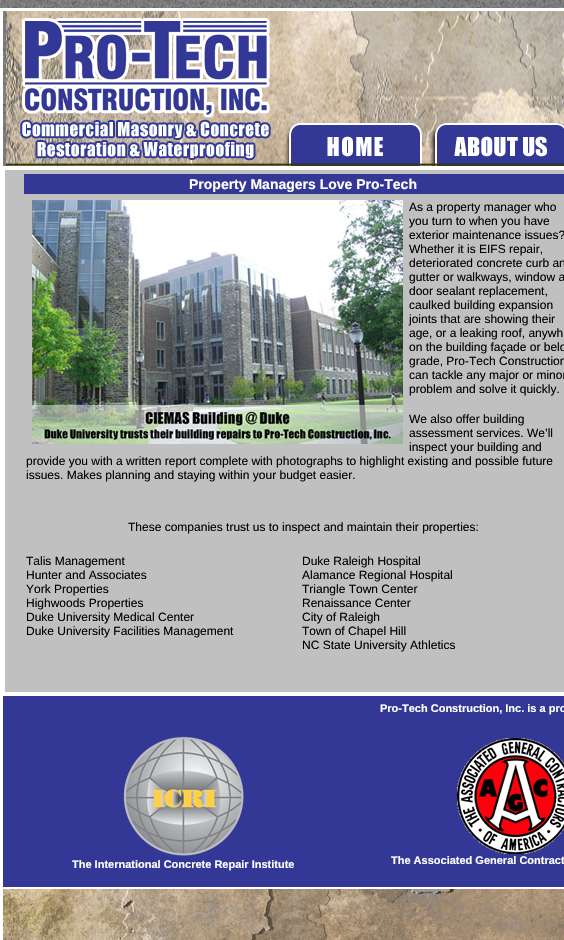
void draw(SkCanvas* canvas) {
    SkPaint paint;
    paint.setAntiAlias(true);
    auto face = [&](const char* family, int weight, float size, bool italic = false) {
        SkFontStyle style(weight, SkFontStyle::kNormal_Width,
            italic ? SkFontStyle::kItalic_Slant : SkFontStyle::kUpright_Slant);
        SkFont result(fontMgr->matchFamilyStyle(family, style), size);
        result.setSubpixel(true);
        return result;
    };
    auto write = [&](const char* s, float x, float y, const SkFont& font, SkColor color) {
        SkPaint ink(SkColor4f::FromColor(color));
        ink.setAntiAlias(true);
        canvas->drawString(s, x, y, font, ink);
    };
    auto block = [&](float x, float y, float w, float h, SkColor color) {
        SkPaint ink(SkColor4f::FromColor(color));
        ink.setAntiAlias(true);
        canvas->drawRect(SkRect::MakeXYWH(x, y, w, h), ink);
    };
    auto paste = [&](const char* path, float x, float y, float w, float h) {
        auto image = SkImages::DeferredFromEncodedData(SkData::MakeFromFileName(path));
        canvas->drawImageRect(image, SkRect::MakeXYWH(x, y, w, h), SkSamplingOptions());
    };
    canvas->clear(SK_ColorWHITE);
    paste("pic1.png", 0, 0, 564, 166);
    paint.setStyle(SkPaint::kStroke_Style);
    paint.setStrokeWidth(2);
    paint.setColor(SK_ColorWHITE);
    canvas->drawRect(SkRect::MakeXYWH(1, 9, 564, 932), paint);
    paint.setStrokeWidth(1);
    canvas->drawRect(SkRect::MakeXYWH(2.5f, 10.5f, 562, 156), paint);
    paste("pic2.png", 6, 11, 558, 108);
    paste("pic3.png", 6, 119, 275, 47);
    paste("pic4.png", 281, 119, 147, 47);
    paste("pic5.png", 428, 119, 136, 47);
    block(5, 170, 559, 522, SkColorSetRGB(192, 192, 192));
    block(24, 174, 540, 20, SkColorSetRGB(51, 56, 150));
    auto kFont1 = face("Liberation Sans", 700, 14);
    write("Property Managers Love Pro-Tech", 189, 189, kFont1, SK_ColorWHITE);
    paste("pic6.png", 32, 200, 371, 244);
    auto kFont2 = face("Liberation Sans", 400, 12);
    write("As a property manager who", 409, 211, kFont2, SK_ColorBLACK);
    write("you turn to when you have", 409, 225, kFont2, SK_ColorBLACK);
    write("exterior maintenance issues?", 409, 239, kFont2, SK_ColorBLACK);
    write("Whether it is EIFS repair,", 409, 253, kFont2, SK_ColorBLACK);
    write("deteriorated concrete curb an", 409, 267, kFont2, SK_ColorBLACK);
    write("gutter or walkways, window a", 409, 281, kFont2, SK_ColorBLACK);
    write("door sealant replacement,", 409, 295, kFont2, SK_ColorBLACK);
    write("caulked building expansion", 409, 309, kFont2, SK_ColorBLACK);
    write("joints that are showing their", 409, 323, kFont2, SK_ColorBLACK);
    write("age, or a leaking roof, anywh", 409, 337, kFont2, SK_ColorBLACK);
    write("on the building façade or belo", 409, 351, kFont2, SK_ColorBLACK);
    write("grade, Pro-Tech Construction", 409, 365, kFont2, SK_ColorBLACK);
    write("can tackle any major or minor", 409, 379, kFont2, SK_ColorBLACK);
    write("problem and solve it quickly.", 409, 393, kFont2, SK_ColorBLACK);
    write("We also offer building", 409, 423, kFont2, SK_ColorBLACK);
    write("assessment services. We’ll", 409, 437, kFont2, SK_ColorBLACK);
    write("inspect your building and", 409, 451, kFont2, SK_ColorBLACK);
    write("provide you with a written report complete with photographs to highlight existing and possible future", 26, 465, kFont2, SK_ColorBLACK);
    write("issues. Makes planning and staying within your budget easier.", 26, 479, kFont2, SK_ColorBLACK);
    write("These companies trust us to inspect and maintain their properties:", 128, 531, kFont2, SK_ColorBLACK);
    write("Talis Management", 26, 565, kFont2, SK_ColorBLACK);
    write("Hunter and Associates", 26, 579, kFont2, SK_ColorBLACK);
    write("York Properties", 26, 593, kFont2, SK_ColorBLACK);
    write("Highwoods Properties", 26, 607, kFont2, SK_ColorBLACK);
    write("Duke University Medical Center", 26, 621, kFont2, SK_ColorBLACK);
    write("Duke University Facilities Management", 26, 635, kFont2, SK_ColorBLACK);
    write("Duke Raleigh Hospital", 302, 565, kFont2, SK_ColorBLACK);
    write("Alamance Regional Hospital", 302, 579, kFont2, SK_ColorBLACK);
    write("Triangle Town Center", 302, 593, kFont2, SK_ColorBLACK);
    write("Renaissance Center", 302, 607, kFont2, SK_ColorBLACK);
    write("City of Raleigh", 302, 621, kFont2, SK_ColorBLACK);
    write("Town of Chapel Hill", 302, 635, kFont2, SK_ColorBLACK);
    write("NC State University Athletics", 302, 649, kFont2, SK_ColorBLACK);
    block(3, 696, 561, 191, SkColorSetRGB(51, 56, 150));
    auto kFont3 = face("Liberation Sans", 700, 11);
    write("Pro-Tech Construction, Inc. is a pro", 380, 712, kFont3, SK_ColorWHITE);
    paste("pic7.png", 123, 736, 121, 120);
    write("The International Concrete Repair Institute", 72, 868, kFont3, SK_ColorWHITE);
    paste("pic8.png", 457, 738, 107, 116);
    write("The Associated General Contract", 391, 864, kFont3, SK_ColorWHITE);
    paste("pic9.png", 3, 889, 561, 51);
}
